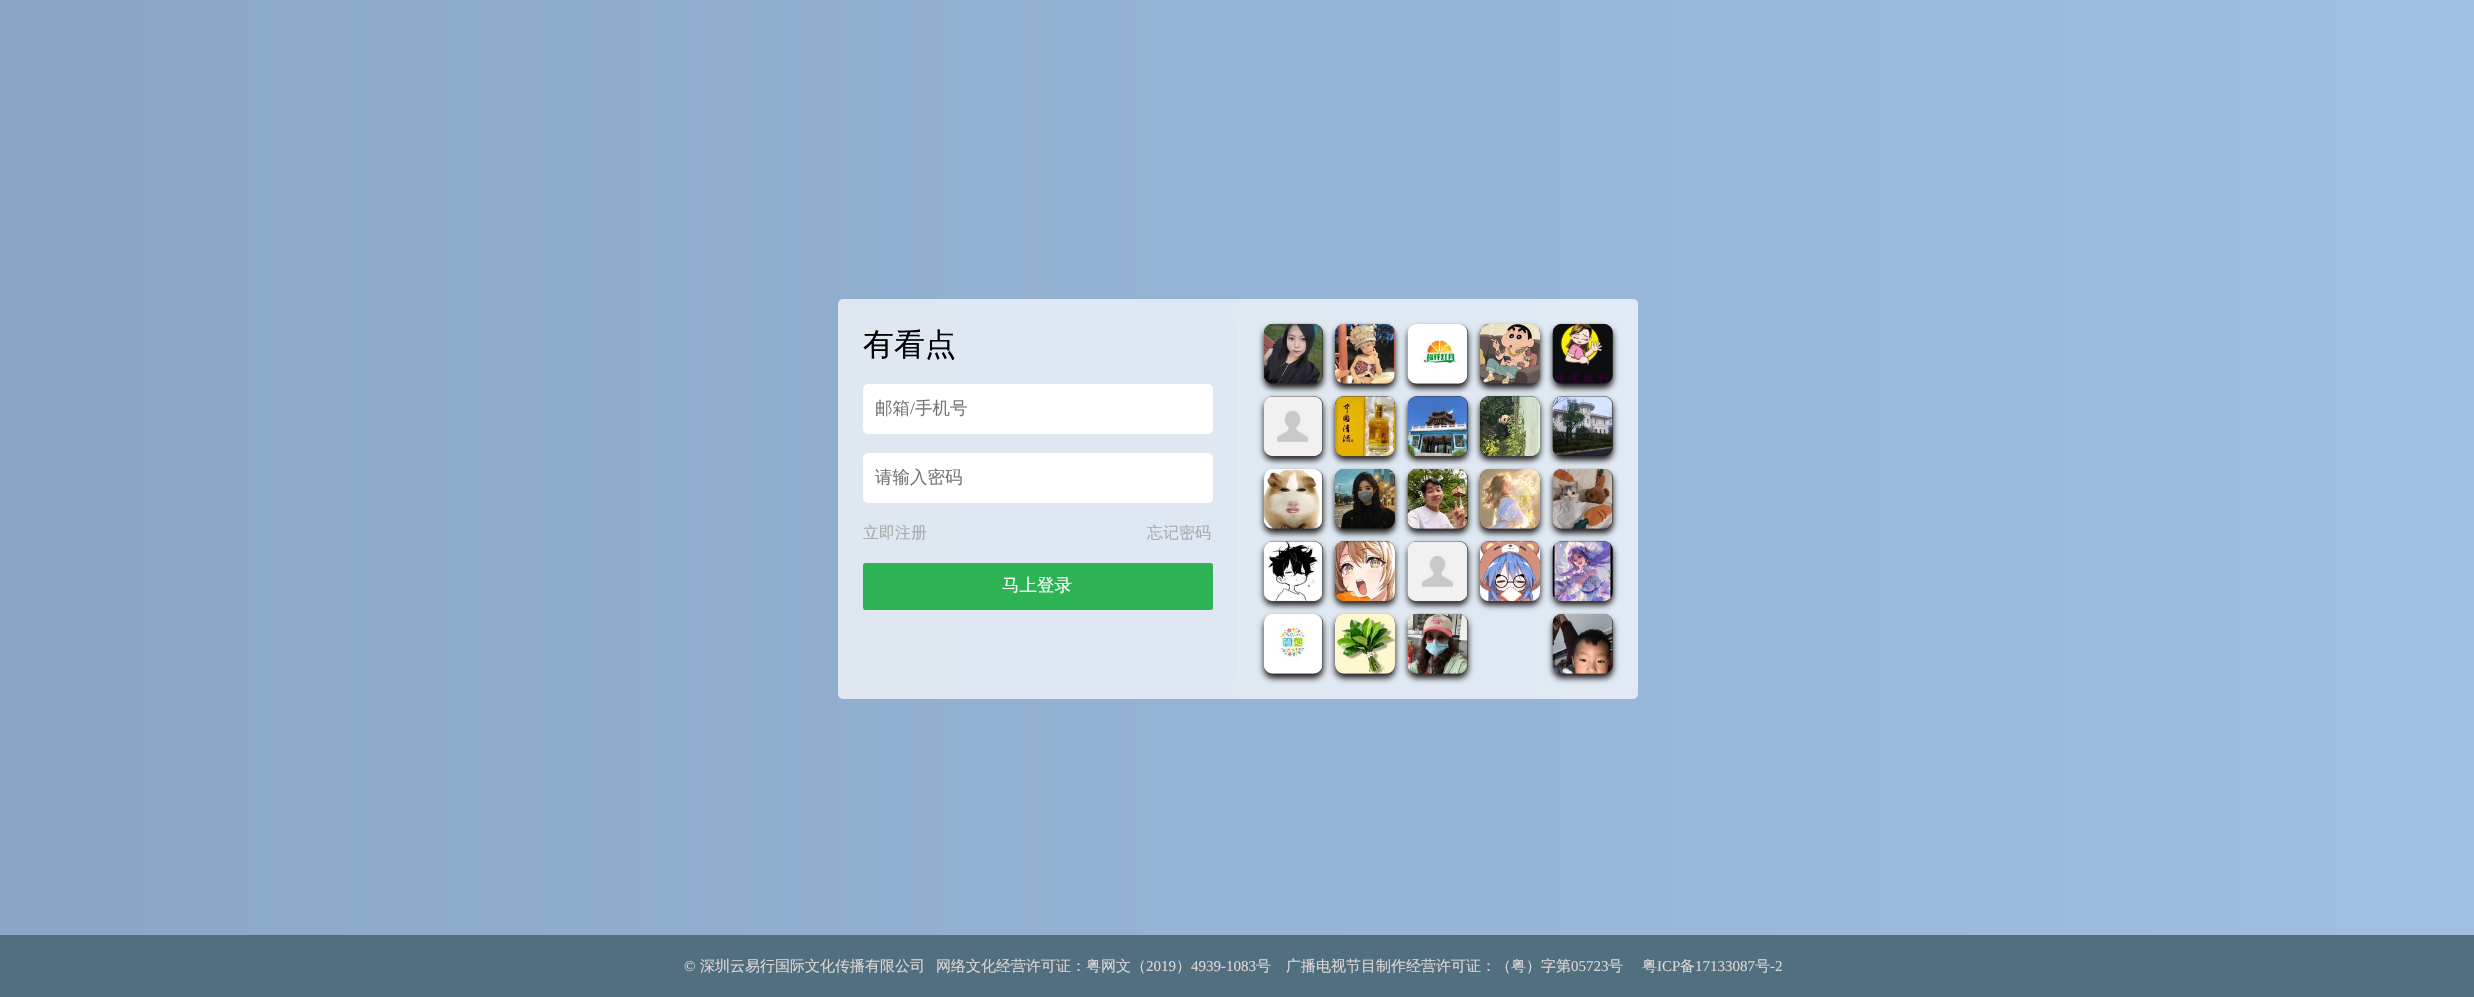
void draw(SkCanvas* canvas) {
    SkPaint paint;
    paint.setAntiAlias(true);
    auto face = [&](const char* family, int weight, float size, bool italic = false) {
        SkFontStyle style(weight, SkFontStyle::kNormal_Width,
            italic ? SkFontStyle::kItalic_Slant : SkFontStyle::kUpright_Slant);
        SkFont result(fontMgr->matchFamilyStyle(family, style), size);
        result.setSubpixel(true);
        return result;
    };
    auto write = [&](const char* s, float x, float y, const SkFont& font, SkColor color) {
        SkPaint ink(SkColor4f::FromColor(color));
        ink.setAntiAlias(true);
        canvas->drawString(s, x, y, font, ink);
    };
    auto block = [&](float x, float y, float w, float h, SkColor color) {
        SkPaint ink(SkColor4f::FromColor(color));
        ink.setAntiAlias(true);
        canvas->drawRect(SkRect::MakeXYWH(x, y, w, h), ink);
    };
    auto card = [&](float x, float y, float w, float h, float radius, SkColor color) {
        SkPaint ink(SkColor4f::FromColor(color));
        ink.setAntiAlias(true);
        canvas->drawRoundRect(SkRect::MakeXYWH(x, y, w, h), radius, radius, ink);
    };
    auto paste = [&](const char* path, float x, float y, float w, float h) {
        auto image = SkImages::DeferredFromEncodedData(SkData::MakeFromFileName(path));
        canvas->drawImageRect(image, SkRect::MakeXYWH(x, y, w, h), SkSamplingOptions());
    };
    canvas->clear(SK_ColorWHITE);
    {
        const SkColor colors[] = {SkColorSetRGB(137, 166, 198), SkColorSetRGB(160, 191, 225)};
        const float stops[] = {0, 1};
        const SkPoint ends[] = {{0, 499}, {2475, 499}};
        paint.setShader(SkGradientShader::MakeLinear(ends, colors, stops, 2, SkTileMode::kClamp));
        paint.setAlpha(255);
    }
    canvas->drawRect(SkRect::MakeXYWH(0, 0, 2474, 935), paint);
    card(838, 299, 800, 400, 5, SkColorSetARGB(179, 255, 255, 255));
    block(1238, 324, 1, 350, SkColorSetRGB(234, 239, 244));
    auto kFont1 = face("WenQuanYi Zen Hei", 500, 31);
    write("有看点", 863, 355, kFont1, SK_ColorBLACK);
    card(863, 384, 350, 50, 5, SK_ColorWHITE);
    auto kFont2 = face("WenQuanYi Zen Hei", 500, 17.5f);
    write("邮箱", 875, 414, kFont2, SkColorSetRGB(117, 117, 117));
    auto kFont3 = face("Liberation Serif", 400, 17.5f);
    write("/", 910, 414, kFont3, SkColorSetRGB(117, 117, 117));
    write("手机号", 915, 414, kFont2, SkColorSetRGB(117, 117, 117));
    card(863, 453, 350, 50, 5, SK_ColorWHITE);
    write("请输入密码", 875, 483, kFont2, SkColorSetRGB(117, 117, 117));
    auto kFont4 = face("WenQuanYi Zen Hei", 500, 16);
    write("立即注册", 863, 538, kFont4, SkColorSetRGB(170, 170, 170));
    write("忘记密码", 1147, 538, kFont4, SkColorSetRGB(170, 170, 170));
    card(863, 563, 350, 47, 2.5f, SkColorSetRGB(46, 179, 84));
    write("马上登录", 1002, 591, kFont2, SK_ColorWHITE);
    paint.setShader(nullptr);
    paint.setColor(SkColorSetRGB(25, 23, 23));
    paint.setMaskFilter(SkMaskFilter::MakeBlur(kNormal_SkBlurStyle, 3));
    canvas->drawRoundRect(SkRect::MakeXYWH(1264, 328, 59, 60), 9, 9, paint);
    paint.setMaskFilter(nullptr);
    card(1264, 324, 59, 60, 9, SkColorSetRGB(51, 51, 51));
    paste("pic1.png", 1263, 323, 60, 61);
    paint.setMaskFilter(SkMaskFilter::MakeBlur(kNormal_SkBlurStyle, 3));
    canvas->drawRoundRect(SkRect::MakeXYWH(1335, 328, 60, 60), 9, 9, paint);
    paint.setMaskFilter(nullptr);
    card(1335, 324, 60, 60, 9, SkColorSetRGB(51, 51, 51));
    paste("pic2.png", 1335, 323, 60, 61);
    paint.setMaskFilter(SkMaskFilter::MakeBlur(kNormal_SkBlurStyle, 3));
    canvas->drawRoundRect(SkRect::MakeXYWH(1408, 328, 60, 60), 9, 9, paint);
    paint.setMaskFilter(nullptr);
    card(1408, 324, 60, 60, 9, SkColorSetRGB(51, 51, 51));
    paste("pic3.png", 1407, 324, 61, 60);
    paint.setMaskFilter(SkMaskFilter::MakeBlur(kNormal_SkBlurStyle, 3));
    canvas->drawRoundRect(SkRect::MakeXYWH(1480, 328, 60, 60), 9, 9, paint);
    paint.setMaskFilter(nullptr);
    card(1480, 324, 60, 60, 9, SkColorSetRGB(51, 51, 51));
    paste("pic4.png", 1480, 324, 60, 60);
    paint.setMaskFilter(SkMaskFilter::MakeBlur(kNormal_SkBlurStyle, 3));
    canvas->drawRoundRect(SkRect::MakeXYWH(1553, 328, 60, 60), 9, 9, paint);
    paint.setMaskFilter(nullptr);
    card(1553, 324, 60, 60, 9, SkColorSetRGB(51, 51, 51));
    paste("pic5.png", 1552, 323, 61, 61);
    paint.setMaskFilter(SkMaskFilter::MakeBlur(kNormal_SkBlurStyle, 3));
    canvas->drawRoundRect(SkRect::MakeXYWH(1264, 400, 59, 60), 9, 9, paint);
    paint.setMaskFilter(nullptr);
    card(1264, 396, 59, 60, 9, SkColorSetRGB(51, 51, 51));
    paste("pic6.png", 1263, 396, 60, 61);
    paint.setMaskFilter(SkMaskFilter::MakeBlur(kNormal_SkBlurStyle, 3));
    canvas->drawRoundRect(SkRect::MakeXYWH(1335, 400, 60, 60), 9, 9, paint);
    paint.setMaskFilter(nullptr);
    card(1335, 396, 60, 60, 9, SkColorSetRGB(51, 51, 51));
    paste("pic7.png", 1335, 396, 60, 61);
    paint.setMaskFilter(SkMaskFilter::MakeBlur(kNormal_SkBlurStyle, 3));
    canvas->drawRoundRect(SkRect::MakeXYWH(1408, 400, 60, 60), 9, 9, paint);
    paint.setMaskFilter(nullptr);
    card(1408, 396, 60, 60, 9, SkColorSetRGB(51, 51, 51));
    paste("pic8.png", 1407, 396, 61, 61);
    paint.setMaskFilter(SkMaskFilter::MakeBlur(kNormal_SkBlurStyle, 3));
    canvas->drawRoundRect(SkRect::MakeXYWH(1480, 400, 60, 60), 9, 9, paint);
    paint.setMaskFilter(nullptr);
    card(1480, 396, 60, 60, 9, SkColorSetRGB(51, 51, 51));
    paste("pic9.png", 1480, 396, 60, 61);
    paint.setMaskFilter(SkMaskFilter::MakeBlur(kNormal_SkBlurStyle, 3));
    canvas->drawRoundRect(SkRect::MakeXYWH(1553, 400, 60, 60), 9, 9, paint);
    paint.setMaskFilter(nullptr);
    card(1553, 396, 60, 60, 9, SkColorSetRGB(51, 51, 51));
    paste("pic10.png", 1552, 396, 61, 61);
    paint.setMaskFilter(SkMaskFilter::MakeBlur(kNormal_SkBlurStyle, 3));
    canvas->drawRoundRect(SkRect::MakeXYWH(1264, 473, 59, 60), 9, 9, paint);
    paint.setMaskFilter(nullptr);
    card(1264, 469, 59, 60, 9, SkColorSetRGB(51, 51, 51));
    paste("pic11.png", 1263, 469, 60, 60);
    paint.setMaskFilter(SkMaskFilter::MakeBlur(kNormal_SkBlurStyle, 3));
    canvas->drawRoundRect(SkRect::MakeXYWH(1335, 473, 60, 60), 9, 9, paint);
    paint.setMaskFilter(nullptr);
    card(1335, 469, 60, 60, 9, SkColorSetRGB(51, 51, 51));
    paste("pic12.png", 1335, 468, 60, 61);
    paint.setMaskFilter(SkMaskFilter::MakeBlur(kNormal_SkBlurStyle, 3));
    canvas->drawRoundRect(SkRect::MakeXYWH(1408, 473, 60, 60), 9, 9, paint);
    paint.setMaskFilter(nullptr);
    card(1408, 469, 60, 60, 9, SkColorSetRGB(51, 51, 51));
    paste("pic13.png", 1407, 468, 61, 61);
    paint.setMaskFilter(SkMaskFilter::MakeBlur(kNormal_SkBlurStyle, 3));
    canvas->drawRoundRect(SkRect::MakeXYWH(1480, 473, 60, 60), 9, 9, paint);
    paint.setMaskFilter(nullptr);
    card(1480, 469, 60, 60, 9, SkColorSetRGB(51, 51, 51));
    paste("pic14.png", 1480, 468, 60, 61);
    paint.setMaskFilter(SkMaskFilter::MakeBlur(kNormal_SkBlurStyle, 3));
    canvas->drawRoundRect(SkRect::MakeXYWH(1553, 473, 60, 60), 9, 9, paint);
    paint.setMaskFilter(nullptr);
    card(1553, 469, 60, 60, 9, SkColorSetRGB(51, 51, 51));
    paste("pic15.png", 1552, 468, 61, 61);
    paint.setMaskFilter(SkMaskFilter::MakeBlur(kNormal_SkBlurStyle, 3));
    canvas->drawRoundRect(SkRect::MakeXYWH(1264, 545, 59, 60), 9, 9, paint);
    paint.setMaskFilter(nullptr);
    card(1264, 541, 59, 60, 9, SkColorSetRGB(51, 51, 51));
    paste("pic16.png", 1263, 541, 60, 61);
    paint.setMaskFilter(SkMaskFilter::MakeBlur(kNormal_SkBlurStyle, 3));
    canvas->drawRoundRect(SkRect::MakeXYWH(1335, 545, 60, 60), 9, 9, paint);
    paint.setMaskFilter(nullptr);
    card(1335, 541, 60, 60, 9, SkColorSetRGB(51, 51, 51));
    paste("pic17.png", 1335, 541, 60, 61);
    paint.setMaskFilter(SkMaskFilter::MakeBlur(kNormal_SkBlurStyle, 3));
    canvas->drawRoundRect(SkRect::MakeXYWH(1408, 545, 60, 60), 9, 9, paint);
    paint.setMaskFilter(nullptr);
    card(1408, 541, 60, 60, 9, SkColorSetRGB(51, 51, 51));
    paste("pic18.png", 1407, 541, 61, 61);
    paint.setMaskFilter(SkMaskFilter::MakeBlur(kNormal_SkBlurStyle, 3));
    canvas->drawRoundRect(SkRect::MakeXYWH(1480, 545, 60, 60), 9, 9, paint);
    paint.setMaskFilter(nullptr);
    card(1480, 541, 60, 60, 9, SkColorSetRGB(51, 51, 51));
    paste("pic19.png", 1480, 541, 60, 61);
    paint.setMaskFilter(SkMaskFilter::MakeBlur(kNormal_SkBlurStyle, 3));
    canvas->drawRoundRect(SkRect::MakeXYWH(1553, 545, 60, 60), 9, 9, paint);
    paint.setMaskFilter(nullptr);
    card(1553, 541, 60, 60, 9, SkColorSetRGB(51, 51, 51));
    paste("pic20.png", 1552, 541, 61, 61);
    paint.setMaskFilter(SkMaskFilter::MakeBlur(kNormal_SkBlurStyle, 3));
    canvas->drawRoundRect(SkRect::MakeXYWH(1264, 618, 59, 60), 9, 9, paint);
    paint.setMaskFilter(nullptr);
    card(1264, 614, 59, 60, 9, SkColorSetRGB(51, 51, 51));
    paste("pic21.png", 1263, 614, 60, 60);
    paint.setMaskFilter(SkMaskFilter::MakeBlur(kNormal_SkBlurStyle, 3));
    canvas->drawRoundRect(SkRect::MakeXYWH(1335, 618, 60, 60), 9, 9, paint);
    paint.setMaskFilter(nullptr);
    card(1335, 614, 60, 60, 9, SkColorSetRGB(51, 51, 51));
    paste("pic22.png", 1335, 614, 60, 60);
    paint.setMaskFilter(SkMaskFilter::MakeBlur(kNormal_SkBlurStyle, 3));
    canvas->drawRoundRect(SkRect::MakeXYWH(1408, 618, 60, 60), 9, 9, paint);
    paint.setMaskFilter(nullptr);
    card(1408, 614, 60, 60, 9, SkColorSetRGB(51, 51, 51));
    paste("pic23.png", 1407, 613, 61, 61);
    paint.setMaskFilter(SkMaskFilter::MakeBlur(kNormal_SkBlurStyle, 3));
    canvas->drawRoundRect(SkRect::MakeXYWH(1553, 618, 60, 60), 9, 9, paint);
    paint.setMaskFilter(nullptr);
    card(1553, 614, 60, 60, 9, SkColorSetRGB(51, 51, 51));
    paste("pic24.png", 1552, 613, 61, 61);
    block(0, 935, 2474, 62, SkColorSetRGB(82, 111, 128));
    auto kFont5 = face("Liberation Serif", 400, 15);
    write("©", 684, 971, kFont5, SkColorSetRGB(219, 214, 214));
    auto kFont6 = face("WenQuanYi Zen Hei", 500, 15);
    write("深圳云易行国际文化传播有限公司", 700, 971, kFont6, SkColorSetRGB(219, 214, 214));
    write("网络文化经营许可证：粤网文（", 936, 971, kFont6, SkColorSetRGB(219, 214, 214));
    write("2019", 1146, 971, kFont5, SkColorSetRGB(219, 214, 214));
    write("）", 1176, 971, kFont6, SkColorSetRGB(219, 214, 214));
    write("4939-1083", 1191, 971, kFont5, SkColorSetRGB(219, 214, 214));
    write("号", 1256, 971, kFont6, SkColorSetRGB(219, 214, 214));
    write("广播电视节目制作经营许可证：（粤）字第", 1286, 971, kFont6, SkColorSetRGB(219, 214, 214));
    write("05723", 1571, 971, kFont5, SkColorSetRGB(219, 214, 214));
    write("号", 1608, 971, kFont6, SkColorSetRGB(219, 214, 214));
    write("粤", 1642, 971, kFont6, SkColorSetRGB(219, 214, 214));
    write("ICP", 1657, 971, kFont5, SkColorSetRGB(219, 214, 214));
    write("备", 1680, 971, kFont6, SkColorSetRGB(219, 214, 214));
    write("17133087", 1695, 971, kFont5, SkColorSetRGB(219, 214, 214));
    write("号", 1755, 971, kFont6, SkColorSetRGB(219, 214, 214));
    write("-2", 1770, 971, kFont5, SkColorSetRGB(219, 214, 214));
}
